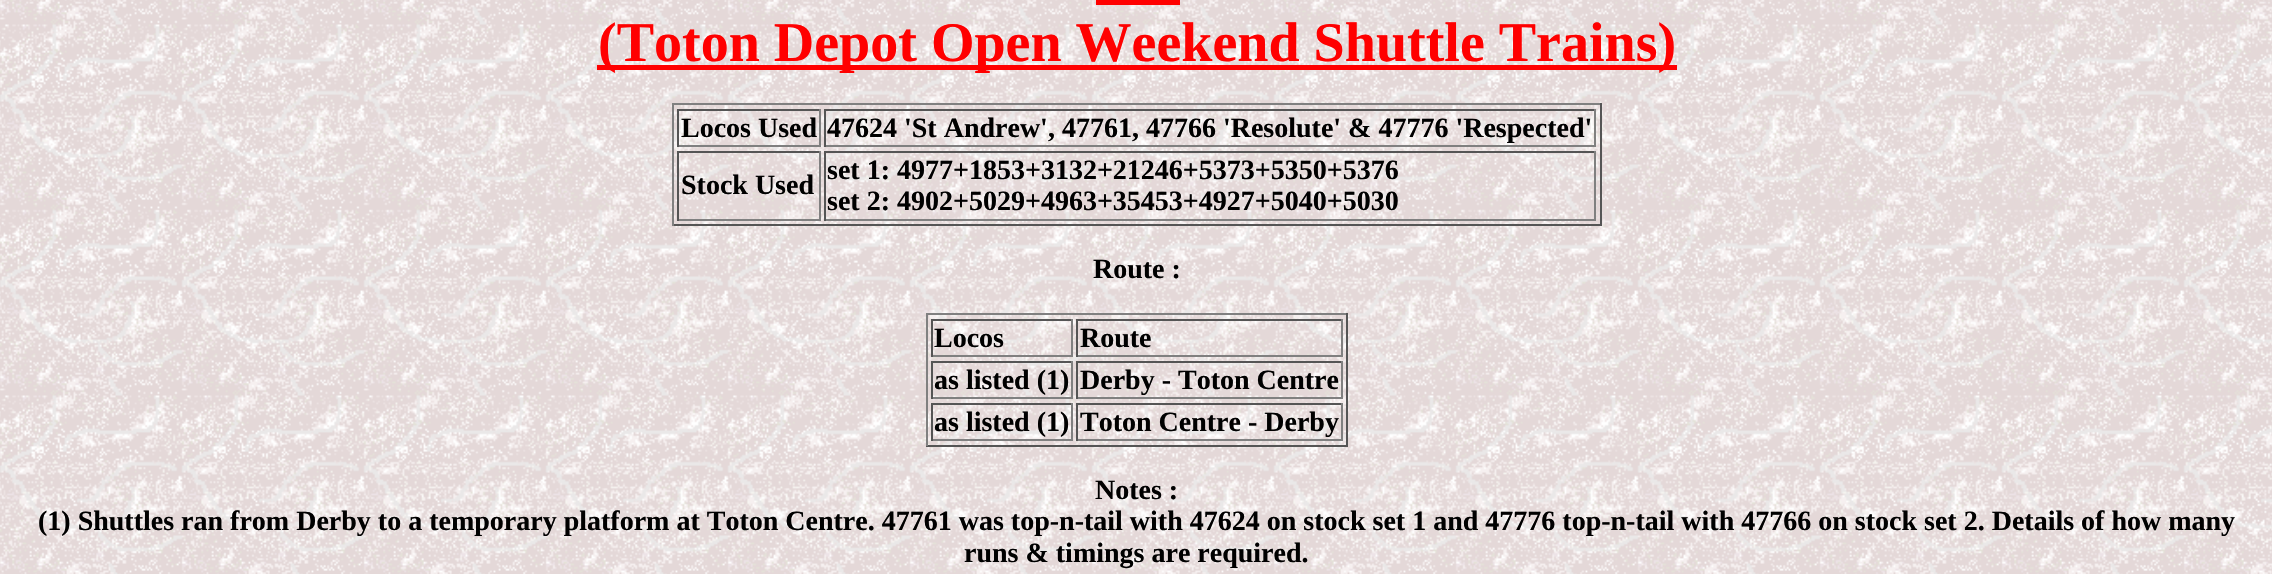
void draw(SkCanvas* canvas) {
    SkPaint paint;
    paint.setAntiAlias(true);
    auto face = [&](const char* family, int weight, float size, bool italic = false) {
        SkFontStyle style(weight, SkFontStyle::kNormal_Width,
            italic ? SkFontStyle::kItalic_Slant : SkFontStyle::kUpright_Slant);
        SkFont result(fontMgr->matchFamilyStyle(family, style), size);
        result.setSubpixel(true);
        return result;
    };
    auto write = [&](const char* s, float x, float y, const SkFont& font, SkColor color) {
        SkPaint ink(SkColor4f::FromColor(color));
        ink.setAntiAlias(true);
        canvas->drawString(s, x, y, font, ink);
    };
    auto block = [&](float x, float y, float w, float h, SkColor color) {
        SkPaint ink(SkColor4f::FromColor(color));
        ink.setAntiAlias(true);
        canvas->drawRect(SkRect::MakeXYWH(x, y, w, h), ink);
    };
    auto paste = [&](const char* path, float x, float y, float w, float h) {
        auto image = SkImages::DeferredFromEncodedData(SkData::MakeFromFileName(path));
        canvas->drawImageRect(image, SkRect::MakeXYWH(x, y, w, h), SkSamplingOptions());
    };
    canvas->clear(SK_ColorWHITE);
    paste("pic1.png", 0, 0, 2272, 574);
    block(597, 65, 1080, 5, SkColorSetRGB(255, 0, 0));
    auto kFont1 = face("Liberation Serif", 700, 56);
    write("(Toton Depot Open Weekend Shuttle Trains)", 598, 61, kFont1, SkColorSetRGB(255, 0, 0));
    block(1096, 0, 84, 5, SkColorSetRGB(255, 0, 0));
    block(672, 103, 929, 2, SkColorSetRGB(128, 128, 128));
    block(1600, 103, 2, 123, SkColorSetRGB(85, 85, 85));
    block(672, 224, 929, 2, SkColorSetRGB(85, 85, 85));
    block(672, 103, 2, 123, SkColorSetRGB(128, 128, 128));
    block(677, 109, 144, 2, SkColorSetRGB(85, 85, 85));
    block(819, 109, 2, 38, SkColorSetRGB(128, 128, 128));
    block(677, 145, 144, 2, SkColorSetRGB(128, 128, 128));
    block(677, 109, 2, 38, SkColorSetRGB(85, 85, 85));
    auto kFont2 = face("Liberation Serif", 700, 28);
    write("Locos Used", 681, 137, kFont2, SK_ColorBLACK);
    block(824, 109, 772, 2, SkColorSetRGB(85, 85, 85));
    block(1594, 109, 2, 38, SkColorSetRGB(128, 128, 128));
    block(824, 145, 772, 2, SkColorSetRGB(128, 128, 128));
    block(824, 109, 2, 38, SkColorSetRGB(85, 85, 85));
    write("47624 'St Andrew', 47761, 47766 'Resolute' & 47776 'Respected'", 827, 137, kFont2, SK_ColorBLACK);
    block(677, 151, 144, 2, SkColorSetRGB(85, 85, 85));
    block(819, 151, 2, 70, SkColorSetRGB(128, 128, 128));
    block(677, 219, 144, 2, SkColorSetRGB(128, 128, 128));
    block(677, 151, 2, 70, SkColorSetRGB(85, 85, 85));
    write("Stock Used", 681, 194, kFont2, SK_ColorBLACK);
    block(824, 151, 772, 2, SkColorSetRGB(85, 85, 85));
    block(1594, 151, 2, 70, SkColorSetRGB(128, 128, 128));
    block(824, 219, 772, 2, SkColorSetRGB(128, 128, 128));
    block(824, 151, 2, 70, SkColorSetRGB(85, 85, 85));
    write("set 1: 4977+1853+3132+21246+5373+5350+5376", 827, 179, kFont2, SK_ColorBLACK);
    write("set 2: 4902+5029+4963+35453+4927+5040+5030", 827, 210, kFont2, SK_ColorBLACK);
    write("Route :", 1093, 278, kFont2, SK_ColorBLACK);
    block(926, 313, 422, 2, SkColorSetRGB(128, 128, 128));
    block(1346, 313, 2, 133, SkColorSetRGB(85, 85, 85));
    block(926, 445, 422, 2, SkColorSetRGB(85, 85, 85));
    block(926, 313, 2, 133, SkColorSetRGB(128, 128, 128));
    block(931, 319, 142, 2, SkColorSetRGB(85, 85, 85));
    block(1071, 319, 2, 38, SkColorSetRGB(128, 128, 128));
    block(931, 355, 142, 2, SkColorSetRGB(128, 128, 128));
    block(931, 319, 2, 38, SkColorSetRGB(85, 85, 85));
    write("Locos", 934, 347, kFont2, SK_ColorBLACK);
    block(1076, 319, 266, 2, SkColorSetRGB(85, 85, 85));
    block(1341, 319, 2, 38, SkColorSetRGB(128, 128, 128));
    block(1076, 355, 266, 2, SkColorSetRGB(128, 128, 128));
    block(1076, 319, 2, 38, SkColorSetRGB(85, 85, 85));
    write("Route", 1080, 347, kFont2, SK_ColorBLACK);
    block(931, 361, 142, 2, SkColorSetRGB(85, 85, 85));
    block(1071, 361, 2, 38, SkColorSetRGB(128, 128, 128));
    block(931, 397, 142, 2, SkColorSetRGB(128, 128, 128));
    block(931, 361, 2, 38, SkColorSetRGB(85, 85, 85));
    write("as listed (1)", 934, 389, kFont2, SK_ColorBLACK);
    block(1076, 361, 266, 2, SkColorSetRGB(85, 85, 85));
    block(1341, 361, 2, 38, SkColorSetRGB(128, 128, 128));
    block(1076, 397, 266, 2, SkColorSetRGB(128, 128, 128));
    block(1076, 361, 2, 38, SkColorSetRGB(85, 85, 85));
    write("Derby - Toton Centre", 1080, 389, kFont2, SK_ColorBLACK);
    block(931, 403, 142, 2, SkColorSetRGB(85, 85, 85));
    block(1071, 403, 2, 38, SkColorSetRGB(128, 128, 128));
    block(931, 439, 142, 2, SkColorSetRGB(128, 128, 128));
    block(931, 403, 2, 38, SkColorSetRGB(85, 85, 85));
    write("as listed (1)", 934, 431, kFont2, SK_ColorBLACK);
    block(1076, 403, 266, 2, SkColorSetRGB(85, 85, 85));
    block(1341, 403, 2, 38, SkColorSetRGB(128, 128, 128));
    block(1076, 439, 266, 2, SkColorSetRGB(128, 128, 128));
    block(1076, 403, 2, 38, SkColorSetRGB(85, 85, 85));
    write("Toton Centre - Derby", 1080, 431, kFont2, SK_ColorBLACK);
    write("Notes :", 1095, 499, kFont2, SK_ColorBLACK);
    write("(1) Shuttles ran from Derby to a temporary platform at Toton Centre. 47761 was top-n-tail with 47624 on stock set 1 and 47776 top-n-tail with 47766 on stock set 2. Details of how many", 38, 530, kFont2, SK_ColorBLACK);
    write("runs & timings are required.", 964, 562, kFont2, SK_ColorBLACK);
}
